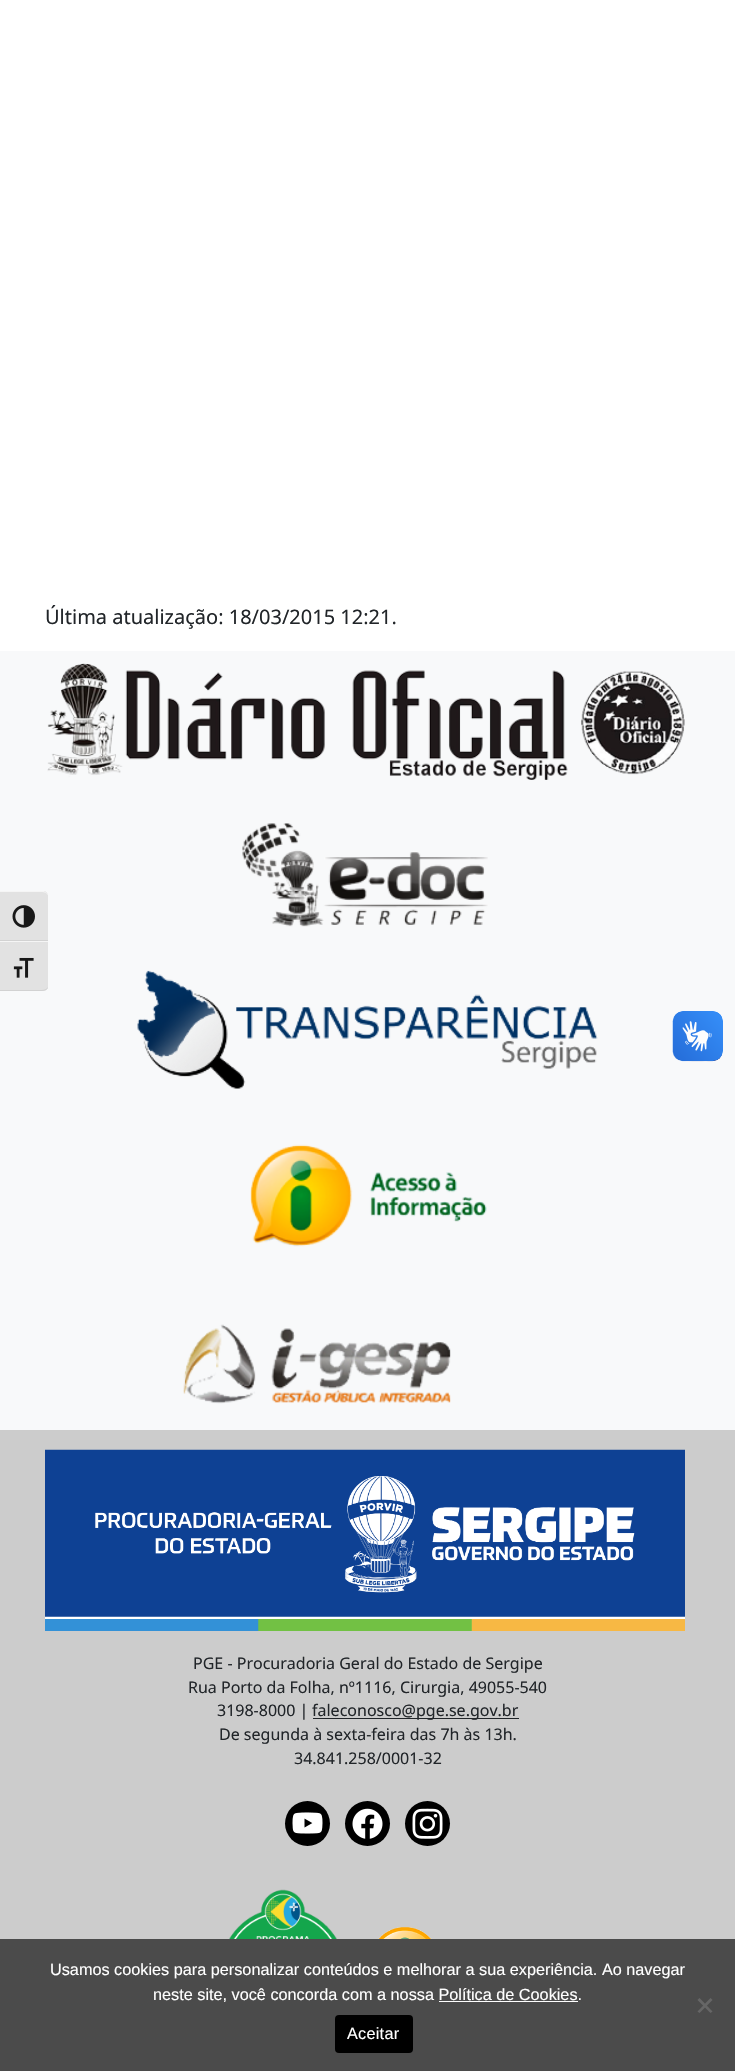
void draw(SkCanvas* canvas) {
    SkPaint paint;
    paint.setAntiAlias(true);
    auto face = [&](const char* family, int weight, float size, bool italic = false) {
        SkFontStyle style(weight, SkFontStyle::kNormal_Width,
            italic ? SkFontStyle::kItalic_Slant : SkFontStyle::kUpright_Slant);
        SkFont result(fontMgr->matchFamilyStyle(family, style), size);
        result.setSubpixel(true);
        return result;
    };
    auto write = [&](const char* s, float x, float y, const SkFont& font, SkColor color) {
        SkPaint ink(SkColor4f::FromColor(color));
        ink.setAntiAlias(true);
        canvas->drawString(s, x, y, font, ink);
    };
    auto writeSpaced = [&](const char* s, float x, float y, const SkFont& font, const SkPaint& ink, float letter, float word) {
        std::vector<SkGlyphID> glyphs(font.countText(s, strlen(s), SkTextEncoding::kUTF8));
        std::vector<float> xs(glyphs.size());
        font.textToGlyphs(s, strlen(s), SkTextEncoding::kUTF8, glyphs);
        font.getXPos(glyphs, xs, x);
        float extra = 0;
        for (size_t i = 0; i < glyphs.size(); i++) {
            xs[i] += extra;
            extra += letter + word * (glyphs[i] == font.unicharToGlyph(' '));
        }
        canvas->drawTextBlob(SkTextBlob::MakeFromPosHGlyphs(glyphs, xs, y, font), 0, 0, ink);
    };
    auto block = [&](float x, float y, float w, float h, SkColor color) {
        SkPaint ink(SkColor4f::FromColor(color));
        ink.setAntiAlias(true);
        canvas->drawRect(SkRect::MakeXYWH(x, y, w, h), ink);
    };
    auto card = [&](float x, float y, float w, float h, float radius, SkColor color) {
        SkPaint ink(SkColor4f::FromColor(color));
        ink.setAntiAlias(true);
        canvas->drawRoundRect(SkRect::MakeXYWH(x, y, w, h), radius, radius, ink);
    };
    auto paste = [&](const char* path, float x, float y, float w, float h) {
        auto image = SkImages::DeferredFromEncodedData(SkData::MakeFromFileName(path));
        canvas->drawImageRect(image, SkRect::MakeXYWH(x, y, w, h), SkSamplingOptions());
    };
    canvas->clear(SK_ColorWHITE);
    auto kFont1 = face("Noto Sans", 400, 20);
    write("Última atualização: 18/03/2015 12:21.", 45, 624, kFont1, SkColorSetRGB(33, 37, 41));
    block(0, 651, 735, 779, SkColorSetRGB(248, 249, 250));
    paste("pic1.png", 47, 663, 638, 117);
    paste("pic2.png", 242, 823, 246, 104);
    paste("pic3.png", 137, 970, 461, 119);
    paste("pic4.png", 250, 1144, 237, 103);
    paste("pic5.png", 183, 1324, 268, 80);
    paint.setColor(SkColorSetRGB(226, 226, 226));
    canvas->drawPath(SkPathBuilder().moveTo(0, 891).lineTo(43, 891).cubicTo(46, 891, 48, 893, 48, 896).lineTo(48, 941).lineTo(0, 941).close().detach(), paint);
    paint.setColor(SkColorSetRGB(245, 245, 245));
    canvas->drawPath(SkPathBuilder().moveTo(0, 892).lineTo(42, 892).cubicTo(44, 892, 47, 893, 48, 895).lineTo(48, 894).cubicTo(47, 893, 45, 892, 44, 891).lineTo(0, 891).close().detach(), paint);
    block(0, 940, 48, 1, SkColorSetRGB(210, 210, 210));
    paste("pic6.png", 12, 905, 23, 23);
    paint.setColor(SkColorSetRGB(226, 226, 226));
    canvas->drawPath(SkPathBuilder().moveTo(0, 941).lineTo(48, 941).lineTo(48, 986).cubicTo(48, 989, 46, 991, 43, 991).lineTo(0, 991).close().detach(), paint);
    block(0, 941, 48, 1, SkColorSetRGB(245, 245, 245));
    paint.setColor(SkColorSetRGB(210, 210, 210));
    canvas->drawPath(SkPathBuilder().moveTo(0, 990).lineTo(0, 991).lineTo(42, 991).cubicTo(44, 991, 47, 990, 48, 988).lineTo(48, 987).cubicTo(47, 989, 44, 990, 42, 990).close().detach(), paint);
    paste("pic7.png", 13, 957, 21, 21);
    paste("pic8.png", 672, 1011, 51, 51);
    paste("pic9.png", 673, 1011, 50, 50);
    block(0, 1430, 735, 509, SkColorSetRGB(204, 204, 204));
    paste("pic10.png", 45, 1449, 640, 182);
    auto kFont2 = face("Noto Sans", 400, 16);
    write("PGE - Procuradoria Geral do Estado de Sergipe", 193, 1669, kFont2, SkColorSetRGB(33, 37, 41));
    write("Rua Porto da Folha, nº1116, Cirurgia, 49055-540", 188, 1693, kFont2, SkColorSetRGB(33, 37, 41));
    write("3198-8000 |", 217, 1716, kFont2, SkColorSetRGB(33, 37, 41));
    block(313, 1718, 206, 1, SkColorSetRGB(33, 37, 41));
    write("faleconosco@pge.se.gov.br", 312, 1716, kFont2, SkColorSetRGB(33, 37, 41));
    write("De segunda à sexta-feira das 7h às 13h.", 219, 1740, kFont2, SkColorSetRGB(33, 37, 41));
    write("34.841.258/0001-32", 294, 1764, kFont2, SkColorSetRGB(33, 37, 41));
    paint.setColor(SK_ColorBLACK);
    canvas->drawCircle(307.5f, 1823.5f, 22.5f, paint);
    paste("pic11.png", 292, 1812, 31, 22);
    canvas->drawCircle(367.5f, 1823.5f, 22.5f, paint);
    paste("pic12.png", 352, 1808, 31, 31);
    canvas->drawCircle(427.5f, 1823.5f, 22.5f, paint);
    paste("pic13.png", 412, 1808, 31, 31);
    paste("pic14.png", 229, 1889, 108, 50);
    paste("pic15.png", 378, 1927, 54, 12);
    block(0, 1939, 735, 132, SkColorSetRGB(75, 75, 75));
    auto kFont3 = face("Liberation Sans", 400, 16.25f);
    write("Usamos cookies para personalizar conteúdos e melhorar a sua experiência. Ao navegar", 50, 1975, kFont3, SK_ColorWHITE);
    write("neste site, você concorda com a nossa Política de Cookies.", 153, 2000, kFont3, SK_ColorWHITE);
    block(439, 2001, 139, 1, SK_ColorWHITE);
    paint.setColor(SkColorSetRGB(102, 102, 102));
    canvas->drawPath(SkPathBuilder().moveTo(710.5f, 1998).lineTo(712.5f, 2000).lineTo(699.5f, 2013).lineTo(697.5f, 2011.5f).close().detach(), paint);
    canvas->drawPath(SkPathBuilder().moveTo(697.5f, 2000).lineTo(699.5f, 1998).lineTo(712.5f, 2011.5f).lineTo(710.5f, 2013).close().detach(), paint);
    card(335, 2015, 78, 38, 4, SK_ColorBLACK);
    paint.setColor(SK_ColorWHITE);
    writeSpaced("Aceitar", 347, 2039, kFont3, paint, 0.25f, 0);
}
